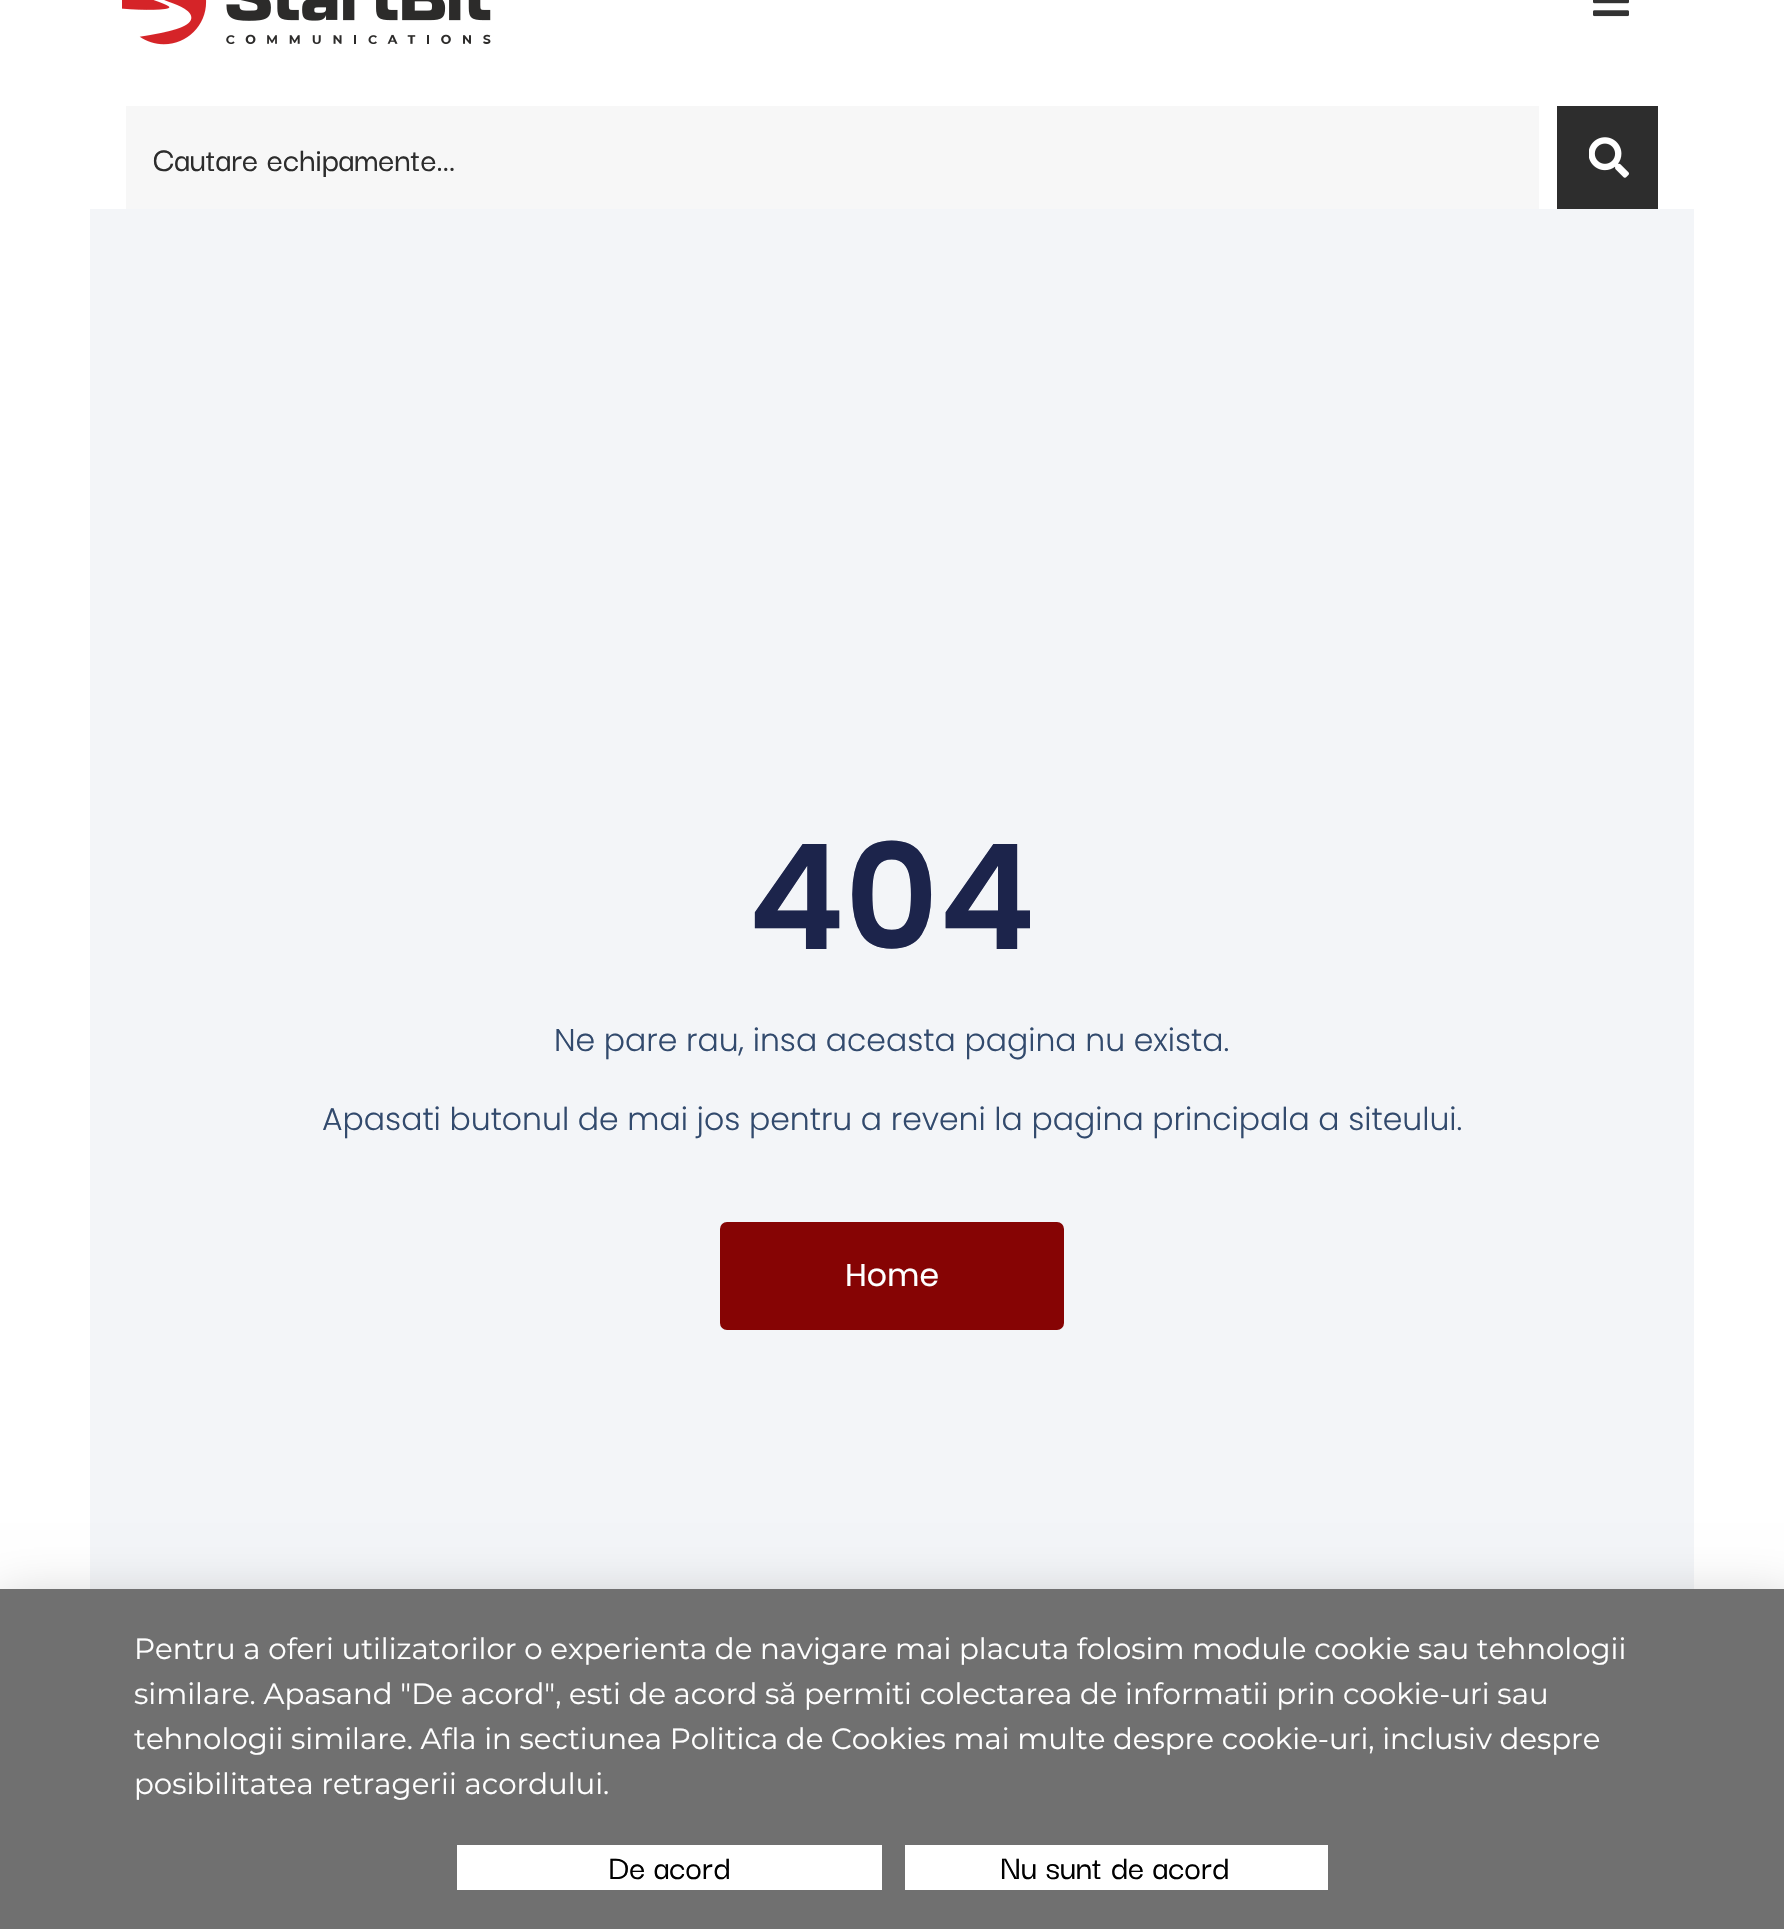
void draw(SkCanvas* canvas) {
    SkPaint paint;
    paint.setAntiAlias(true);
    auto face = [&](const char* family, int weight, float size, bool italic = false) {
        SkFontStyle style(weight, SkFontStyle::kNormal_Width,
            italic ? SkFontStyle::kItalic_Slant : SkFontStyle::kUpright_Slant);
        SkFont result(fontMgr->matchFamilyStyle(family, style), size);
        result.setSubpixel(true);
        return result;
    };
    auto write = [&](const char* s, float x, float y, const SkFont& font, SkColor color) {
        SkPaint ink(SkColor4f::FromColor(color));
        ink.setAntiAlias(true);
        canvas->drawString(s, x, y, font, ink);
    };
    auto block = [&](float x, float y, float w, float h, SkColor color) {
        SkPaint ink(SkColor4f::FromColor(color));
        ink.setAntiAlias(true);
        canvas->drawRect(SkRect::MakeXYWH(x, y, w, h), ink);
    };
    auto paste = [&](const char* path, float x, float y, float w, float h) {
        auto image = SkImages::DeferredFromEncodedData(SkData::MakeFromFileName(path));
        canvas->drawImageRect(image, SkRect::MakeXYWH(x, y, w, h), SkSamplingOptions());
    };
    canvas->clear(SK_ColorWHITE);
    paste("pic1.png", 122, 0, 369, 45);
    paste("pic2.png", 1593, 0, 36, 17);
    block(126, 106, 1413, 103, SkColorSetRGB(247, 247, 247));
    auto kFont1 = face("Darker Grotesque", 500, 36);
    write("Cautare echipamente...", 153, 171, kFont1, SkColorSetRGB(44, 44, 44));
    block(1557, 106, 101, 103, SkColorSetRGB(45, 45, 45));
    paste("pic3.png", 1589, 137, 40, 41);
    block(90, 209, 1604, 1380, SkColorSetRGB(243, 245, 248));
    auto kFont2 = face("Poppins", 600, 146);
    write("404", 748, 949, kFont2, SkColorSetRGB(28, 36, 75));
    auto kFont3 = face("Poppins", 300, 31.5f);
    write("Ne pare rau, insa aceasta pagina nu exista.", 554, 1051, kFont3, SkColorSetRGB(50, 74, 109));
    write("Apasati butonul de mai jos pentru a reveni la pagina principala a siteului.", 322, 1130, kFont3, SkColorSetRGB(50, 74, 109));
    paint.setColor(SkColorSetRGB(134, 4, 4));
    canvas->drawRoundRect(SkRect::MakeXYWH(721, 1223, 342, 106), 6, 6, paint);
    paint.setStyle(SkPaint::kStroke_Style);
    paint.setStrokeWidth(2);
    canvas->drawRoundRect(SkRect::MakeXYWH(721, 1223, 342, 106), 6, 6, paint);
    auto kFont4 = face("Poppins", 400, 31.5f);
    write("Home", 845, 1286, kFont4, SK_ColorWHITE);
    paint.setStyle(SkPaint::kFill_Style);
    paint.setColor(SkColorSetARGB(51, 0, 0, 0));
    paint.setMaskFilter(SkMaskFilter::MakeBlur(kNormal_SkBlurStyle, 26));
    canvas->drawRect(SkRect::MakeXYWH(-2, 1600, 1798, 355), paint);
    paint.setMaskFilter(nullptr);
    block(0, 1589, 1784, 340, SkColorSetRGB(112, 112, 112));
    auto kFont5 = face("Montserrat", 400, 29.25f);
    write("Pentru a oferi utilizatorilor o experienta de navigare mai placuta folosim module cookie sau tehnologii", 134, 1659, kFont5, SK_ColorWHITE);
    write("similare. Apasand \"De acord\", esti de acord să permiti colectarea de informatii prin cookie-uri sau", 134, 1704, kFont5, SK_ColorWHITE);
    write("tehnologii similare. Afla in sectiunea Politica de Cookies mai multe despre cookie-uri, inclusiv despre", 134, 1749, kFont5, SK_ColorWHITE);
    write("posibilitatea retragerii acordului.", 134, 1794, kFont5, SK_ColorWHITE);
    block(457, 1845, 425, 45, SK_ColorWHITE);
    write("De acord", 608, 1879, kFont1, SK_ColorBLACK);
    block(905, 1845, 423, 45, SK_ColorWHITE);
    write("Nu sunt de acord", 1000, 1879, kFont1, SK_ColorBLACK);
}
